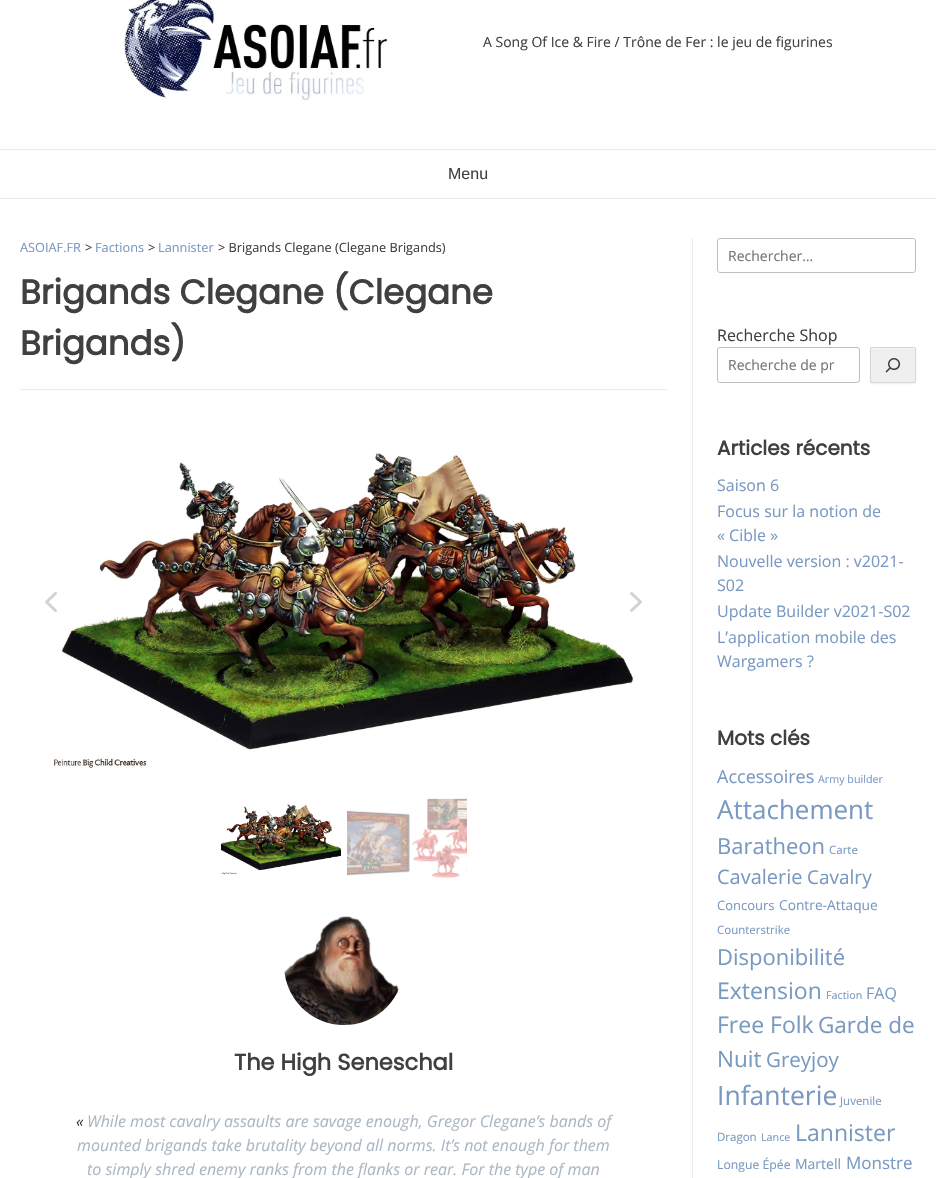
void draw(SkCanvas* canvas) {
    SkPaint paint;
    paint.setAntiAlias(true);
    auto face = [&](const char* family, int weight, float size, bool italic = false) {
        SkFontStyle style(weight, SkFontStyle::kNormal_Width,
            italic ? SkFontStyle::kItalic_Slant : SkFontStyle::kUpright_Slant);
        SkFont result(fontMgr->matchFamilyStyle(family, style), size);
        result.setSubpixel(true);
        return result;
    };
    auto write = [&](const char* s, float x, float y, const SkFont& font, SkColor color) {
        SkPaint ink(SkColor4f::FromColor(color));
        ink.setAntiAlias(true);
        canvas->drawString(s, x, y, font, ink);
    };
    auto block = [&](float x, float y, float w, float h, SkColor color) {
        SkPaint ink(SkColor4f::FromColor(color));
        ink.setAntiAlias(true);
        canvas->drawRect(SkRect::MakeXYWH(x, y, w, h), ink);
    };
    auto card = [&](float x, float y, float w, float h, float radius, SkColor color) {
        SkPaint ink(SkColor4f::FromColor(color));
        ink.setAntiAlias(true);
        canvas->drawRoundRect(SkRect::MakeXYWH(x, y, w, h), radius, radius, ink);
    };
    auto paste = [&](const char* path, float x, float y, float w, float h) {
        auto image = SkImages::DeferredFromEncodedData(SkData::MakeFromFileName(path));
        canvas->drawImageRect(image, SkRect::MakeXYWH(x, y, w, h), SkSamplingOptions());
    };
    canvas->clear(SK_ColorWHITE);
    block(0, 198, 936, 1, SkColorSetRGB(235, 235, 235));
    paste("pic1.png", 124, 0, 264, 101);
    auto kFont1 = face("Open Sans", 400, 14);
    write("A Song Of Ice & Fire / Trône de Fer : le jeu de figurines", 483, 47, kFont1, SkColorSetRGB(64, 64, 64));
    block(0, 149, 936, 1, SkColorSetRGB(235, 235, 235));
    auto kFont2 = face("Liberation Sans", 400, 16);
    write("Menu", 448, 179, kFont2, SkColorSetRGB(64, 64, 64));
    block(692, 238, 1, 940, SkColorSetRGB(235, 235, 235));
    block(20, 389, 647, 1, SkColorSetRGB(235, 235, 235));
    auto kFont3 = face("Open Sans", 400, 12.75f);
    write("ASOIAF.FR", 20, 252, kFont3, SkColorSetRGB(121, 153, 193));
    write(">", 85, 252, kFont3, SkColorSetRGB(64, 64, 64));
    write("Factions", 95, 252, kFont3, SkColorSetRGB(121, 153, 193));
    write(">", 148, 252, kFont3, SkColorSetRGB(64, 64, 64));
    write("Lannister", 158, 252, kFont3, SkColorSetRGB(121, 153, 193));
    write("> Brigands Clegane (Clegane Brigands)", 218, 252, kFont3, SkColorSetRGB(64, 64, 64));
    auto kFont4 = face("Poppins", 700, 34);
    write("Brigands Clegane (Clegane", 20, 304, kFont4, SkColorSetRGB(64, 64, 64));
    write("Brigands)", 20, 355, kFont4, SkColorSetRGB(64, 64, 64));
    paste("pic3.png", 53, 453, 581, 315);
    paste("pic2.png", 45, 592, 12, 20);
    paste("pic4.png", 630, 592, 12, 20);
    paste("pic5.png", 221, 804, 120, 71);
    paste("pic6.png", 347, 798, 120, 80);
    paste("pic7.png", 284, 916, 115, 109);
    auto kFont5 = face("Poppins", 700, 22.5f);
    write("The High Seneschal", 234, 1070, kFont5, SkColorSetRGB(64, 64, 64));
    auto kFont6 = face("Open Sans", 400, 16, true);
    write("«", 76, 1127, kFont6, SkColorSetRGB(64, 64, 64));
    write("While most cavalry assaults are savage enough, Gregor Clegane’s bands of", 87, 1127, kFont6, SkColorSetRGB(171, 184, 195));
    write("mounted brigands take brutality beyond all norms. It’s not enough for them", 77, 1151, kFont6, SkColorSetRGB(171, 184, 195));
    write("to simply shred enemy ranks from the flanks or rear. For the type of man", 87, 1175, kFont6, SkColorSetRGB(171, 184, 195));
    paint.setStyle(SkPaint::kStroke_Style);
    paint.setStrokeWidth(1);
    paint.setColor(SkColorSetRGB(191, 191, 191));
    canvas->drawRoundRect(SkRect::MakeXYWH(717.5f, 238.5f, 198, 34), 2.5f, 2.5f, paint);
    write("Rechercher…", 728, 261, kFont1, SkColorSetRGB(117, 117, 117));
    auto kFont7 = face("Open Sans", 400, 16);
    write("Recherche Shop", 717, 341, kFont7, SkColorSetRGB(64, 64, 64));
    canvas->drawRoundRect(SkRect::MakeXYWH(717.5f, 347.5f, 142, 35), 2.5f, 2.5f, paint);
    write("Recherche de pr", 728, 370, kFont1, SkColorSetRGB(117, 117, 117));
    paint.setStyle(SkPaint::kFill_Style);
    paint.setColor(SkColorSetARGB(15, 0, 0, 0));
    paint.setMaskFilter(SkMaskFilter::MakeBlur(kNormal_SkBlurStyle, 1));
    canvas->drawRoundRect(SkRect::MakeXYWH(870, 348, 46, 36), 2, 2, paint);
    paint.setMaskFilter(nullptr);
    card(870, 347, 46, 36, 2, SkColorSetRGB(239, 239, 239));
    paint.setColor(SkColorSetRGB(245, 245, 245));
    canvas->drawPath(SkPathBuilder().moveTo(872, 349).lineTo(914, 349).lineTo(915, 350).cubicTo(915, 346, 912, 348, 907, 348).lineTo(879, 348).cubicTo(875, 348, 871, 346, 871, 350).close().detach(), paint);
    paint.setStyle(SkPaint::kStroke_Style);
    paint.setColor(SkColorSetARGB(26, 0, 0, 0));
    canvas->drawRoundRect(SkRect::MakeXYWH(870.5f, 347.5f, 45, 35), 1.5f, 1.5f, paint);
    paste("pic8.png", 885, 358, 16, 15);
    auto kFont8 = face("Poppins", 700, 20);
    write("Articles récents", 717, 455, kFont8, SkColorSetRGB(64, 64, 64));
    write("Saison 6", 717, 491, kFont7, SkColorSetRGB(121, 153, 193));
    write("Focus sur la notion de", 717, 517, kFont7, SkColorSetRGB(121, 153, 193));
    write("« Cible »", 717, 541, kFont7, SkColorSetRGB(121, 153, 193));
    write("Nouvelle version : v2021-", 717, 567, kFont7, SkColorSetRGB(121, 153, 193));
    write("S02", 717, 591, kFont7, SkColorSetRGB(121, 153, 193));
    write("Update Builder v2021-S02", 717, 617, kFont7, SkColorSetRGB(121, 153, 193));
    write("L’application mobile des", 717, 643, kFont7, SkColorSetRGB(121, 153, 193));
    write("Wargamers ?", 717, 667, kFont7, SkColorSetRGB(121, 153, 193));
    write("Mots clés", 717, 745, kFont8, SkColorSetRGB(64, 64, 64));
    auto kFont9 = face("Open Sans", 400, 18);
    write("Accessoires", 717, 783, kFont9, SkColorSetRGB(121, 153, 193));
    auto kFont10 = face("Open Sans", 400, 10.75f);
    write("Army builder", 818, 783, kFont10, SkColorSetRGB(121, 153, 193));
    auto kFont11 = face("Open Sans", 400, 26);
    write("Attachement", 717, 819, kFont11, SkColorSetRGB(121, 153, 193));
    auto kFont12 = face("Open Sans", 400, 22);
    write("Baratheon", 717, 854, kFont12, SkColorSetRGB(121, 153, 193));
    auto kFont13 = face("Open Sans", 400, 11.5f);
    write("Carte", 829, 854, kFont13, SkColorSetRGB(121, 153, 193));
    auto kFont14 = face("Open Sans", 400, 20);
    write("Cavalerie", 717, 884, kFont14, SkColorSetRGB(121, 153, 193));
    auto kFont15 = face("Open Sans", 400, 19);
    write("Cavalry", 807, 884, kFont15, SkColorSetRGB(121, 153, 193));
    auto kFont16 = face("Open Sans", 400, 13);
    write("Concours", 717, 910, kFont16, SkColorSetRGB(121, 153, 193));
    auto kFont17 = face("Open Sans", 400, 13.75f);
    write("Contre-Attaque", 779, 910, kFont17, SkColorSetRGB(121, 153, 193));
    write("Counterstrike", 717, 934, kFont13, SkColorSetRGB(121, 153, 193));
    write("Disponibilité", 717, 965, kFont12, SkColorSetRGB(121, 153, 193));
    auto kFont18 = face("Open Sans", 400, 23);
    write("Extension", 717, 999, kFont18, SkColorSetRGB(121, 153, 193));
    write("Faction", 826, 999, kFont10, SkColorSetRGB(121, 153, 193));
    write("FAQ", 866, 999, kFont7, SkColorSetRGB(121, 153, 193));
    write("Free Folk", 717, 1033, kFont18, SkColorSetRGB(121, 153, 193));
    auto kFont19 = face("Open Sans", 400, 22.5f);
    write("Garde de", 818, 1033, kFont19, SkColorSetRGB(121, 153, 193));
    write("Nuit", 717, 1067, kFont19, SkColorSetRGB(121, 153, 193));
    auto kFont20 = face("Open Sans", 400, 20.5f);
    write("Greyjoy", 766, 1067, kFont20, SkColorSetRGB(121, 153, 193));
    auto kFont21 = face("Open Sans", 400, 26.5f);
    write("Infanterie", 717, 1105, kFont21, SkColorSetRGB(121, 153, 193));
    write("Juvenile", 840, 1105, kFont13, SkColorSetRGB(121, 153, 193));
    write("Dragon", 717, 1141, kFont13, SkColorSetRGB(121, 153, 193));
    write("Lance", 761, 1141, kFont10, SkColorSetRGB(121, 153, 193));
    write("Lannister", 795, 1141, kFont18, SkColorSetRGB(121, 153, 193));
    auto kFont22 = face("Open Sans", 400, 12.25f);
    write("Longue Épée", 717, 1169, kFont22, SkColorSetRGB(121, 153, 193));
    write("Martell", 795, 1169, kFont1, SkColorSetRGB(121, 153, 193));
    auto kFont23 = face("Open Sans", 400, 17);
    write("Monstre", 846, 1169, kFont23, SkColorSetRGB(121, 153, 193));
}
